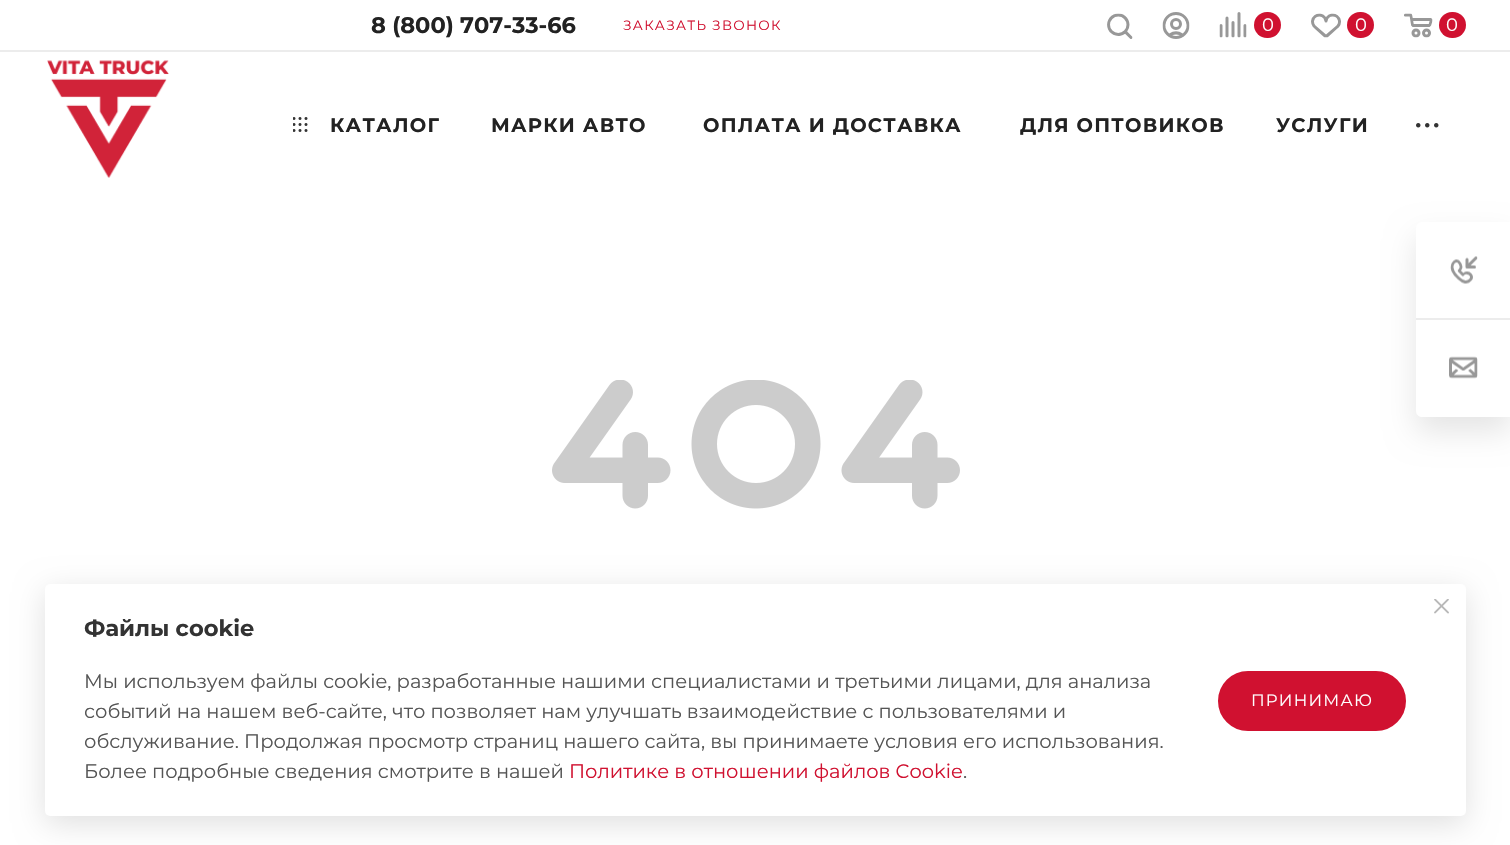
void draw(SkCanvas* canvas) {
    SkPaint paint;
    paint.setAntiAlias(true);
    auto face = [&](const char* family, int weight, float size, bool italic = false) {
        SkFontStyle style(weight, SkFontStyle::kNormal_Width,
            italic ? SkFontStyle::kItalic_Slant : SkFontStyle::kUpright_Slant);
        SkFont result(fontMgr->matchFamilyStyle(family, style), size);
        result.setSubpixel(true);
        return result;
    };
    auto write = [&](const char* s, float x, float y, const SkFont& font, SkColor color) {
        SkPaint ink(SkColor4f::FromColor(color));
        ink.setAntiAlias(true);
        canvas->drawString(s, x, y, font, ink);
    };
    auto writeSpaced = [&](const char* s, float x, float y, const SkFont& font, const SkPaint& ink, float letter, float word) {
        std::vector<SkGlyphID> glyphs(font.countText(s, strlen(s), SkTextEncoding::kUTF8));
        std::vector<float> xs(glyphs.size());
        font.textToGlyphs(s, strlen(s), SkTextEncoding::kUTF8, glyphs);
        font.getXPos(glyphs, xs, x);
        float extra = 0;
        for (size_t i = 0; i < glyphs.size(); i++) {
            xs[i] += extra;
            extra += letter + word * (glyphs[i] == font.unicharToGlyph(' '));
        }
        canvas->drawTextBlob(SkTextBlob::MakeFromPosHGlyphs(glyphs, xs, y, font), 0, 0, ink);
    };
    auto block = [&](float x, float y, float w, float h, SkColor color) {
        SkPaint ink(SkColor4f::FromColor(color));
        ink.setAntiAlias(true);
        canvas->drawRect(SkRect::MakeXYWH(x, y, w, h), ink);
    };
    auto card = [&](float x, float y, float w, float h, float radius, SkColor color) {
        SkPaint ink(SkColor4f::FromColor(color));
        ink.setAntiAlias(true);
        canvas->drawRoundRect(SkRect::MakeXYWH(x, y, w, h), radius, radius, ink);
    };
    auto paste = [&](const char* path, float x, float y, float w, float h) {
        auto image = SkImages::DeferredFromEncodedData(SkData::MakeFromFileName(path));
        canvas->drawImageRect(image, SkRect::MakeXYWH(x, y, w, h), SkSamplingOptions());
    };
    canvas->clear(SK_ColorWHITE);
    block(0, 50, 1510, 2, SkColorSetRGB(236, 236, 236));
    auto kFont1 = face("Montserrat", 700, 22.5f);
    write("8 (800) 707-33-66", 371, 33, kFont1, SkColorSetRGB(34, 34, 34));
    auto kFont2 = face("Montserrat", 400, 13.5f);
    paint.setColor(SkColorSetRGB(208, 17, 48));
    writeSpaced("ЗАКАЗАТЬ ЗВОНОК", 623, 30, kFont2, paint, 1.25f, 0);
    paste("pic1.png", 1107, 13, 26, 26);
    paste("pic2.png", 1162, 12, 28, 27);
    paste("pic3.png", 1219, 12, 28, 26);
    card(1254, 12, 27, 26, 13, SkColorSetRGB(208, 17, 48));
    auto kFont3 = face("Montserrat", 400, 18);
    write("0", 1262, 31, kFont3, SK_ColorWHITE);
    paste("pic4.png", 1311, 13, 30, 25);
    card(1347, 12, 27, 26, 13, SkColorSetRGB(208, 17, 48));
    write("0", 1355, 31, kFont3, SK_ColorWHITE);
    paste("pic5.png", 1404, 13, 29, 25);
    card(1439, 12, 27, 26, 13, SkColorSetRGB(208, 17, 48));
    write("0", 1446, 31, kFont3, SK_ColorWHITE);
    paste("pic6.png", 47, 60, 122, 118);
    paste("pic7.png", 293, 117, 15, 15);
    auto kFont4 = face("Montserrat", 700, 19.5f);
    paint.setColor(SkColorSetRGB(34, 34, 34));
    writeSpaced("КАТАЛОГ", 330, 132, kFont4, paint, 1.25f, 0);
    writeSpaced("МАРКИ АВТО", 491, 132, kFont4, paint, 1.25f, 0);
    writeSpaced("ОПЛАТА И ДОСТАВКА", 703, 132, kFont4, paint, 1.25f, 0);
    writeSpaced("ДЛЯ ОПТОВИКОВ", 1020, 132, kFont4, paint, 1.25f, 0);
    writeSpaced("УСЛУГИ", 1276, 132, kFont4, paint, 1.25f, 0);
    paste("pic8.png", 1416, 123, 23, 5);
    paste("pic9.png", 552, 380, 408, 129);
    paint.setColor(SkColorSetARGB(26, 0, 0, 0));
    paint.setMaskFilter(SkMaskFilter::MakeBlur(kNormal_SkBlurStyle, 15));
    canvas->drawRoundRect(SkRect::MakeXYWH(1416, 237, 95, 195), 6, 6, paint);
    paint.setMaskFilter(nullptr);
    paint.setColor(SK_ColorWHITE);
    canvas->drawPath(SkPathBuilder().moveTo(1422, 222).lineTo(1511, 222).lineTo(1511, 417).lineTo(1422, 417).cubicTo(1418.5f, 417, 1416, 414.5f, 1416, 411).lineTo(1416, 228).cubicTo(1416, 224.5f, 1418.5f, 222, 1422, 222).close().detach(), paint);
    block(1416, 318, 94, 2, SkColorSetRGB(236, 236, 236));
    paste("pic10.png", 1450, 256, 28, 28);
    paste("pic11.png", 1449, 356, 29, 23);
    paint.setColor(SkColorSetARGB(31, 0, 0, 0));
    paint.setMaskFilter(SkMaskFilter::MakeBlur(kNormal_SkBlurStyle, 15));
    canvas->drawRoundRect(SkRect::MakeXYWH(45, 591, 1421, 233), 5, 5, paint);
    paint.setMaskFilter(nullptr);
    card(45, 584, 1421, 232, 5, SK_ColorWHITE);
    paste("pic12.png", 1434, 599, 15, 15);
    write("Файлы cookie", 84, 636, kFont1, SkColorSetRGB(51, 51, 51));
    auto kFont5 = face("Montserrat", 400, 19.5f);
    write("Мы используем файлы cookie, разработанные нашими специалистами и третьими лицами, для анализа", 84, 688, kFont5, SkColorSetRGB(85, 85, 85));
    write("событий на нашем веб-сайте, что позволяет нам улучшать взаимодействие с пользователями и", 84, 718, kFont5, SkColorSetRGB(85, 85, 85));
    write("обслуживание. Продолжая просмотр страниц нашего сайта, вы принимаете условия его использования.", 84, 748, kFont5, SkColorSetRGB(85, 85, 85));
    write("Более подробные сведения смотрите в нашей", 84, 778, kFont5, SkColorSetRGB(85, 85, 85));
    write("Политике в отношении файлов Cookie", 569, 778, kFont5, SkColorSetRGB(208, 17, 48));
    write(".", 963, 778, kFont5, SkColorSetRGB(85, 85, 85));
    paint.setColor(SkColorSetRGB(208, 17, 48));
    canvas->drawRoundRect(SkRect::MakeXYWH(1219, 672, 186, 58), 29, 29, paint);
    paint.setStyle(SkPaint::kStroke_Style);
    paint.setStrokeWidth(2);
    canvas->drawRoundRect(SkRect::MakeXYWH(1219, 672, 186, 58), 29, 29, paint);
    auto kFont6 = face("Montserrat", 400, 16.5f);
    paint.setStyle(SkPaint::kFill_Style);
    paint.setColor(SK_ColorWHITE);
    writeSpaced("ПРИНИМАЮ", 1251, 706, kFont6, paint, 1.25f, 0);
}
